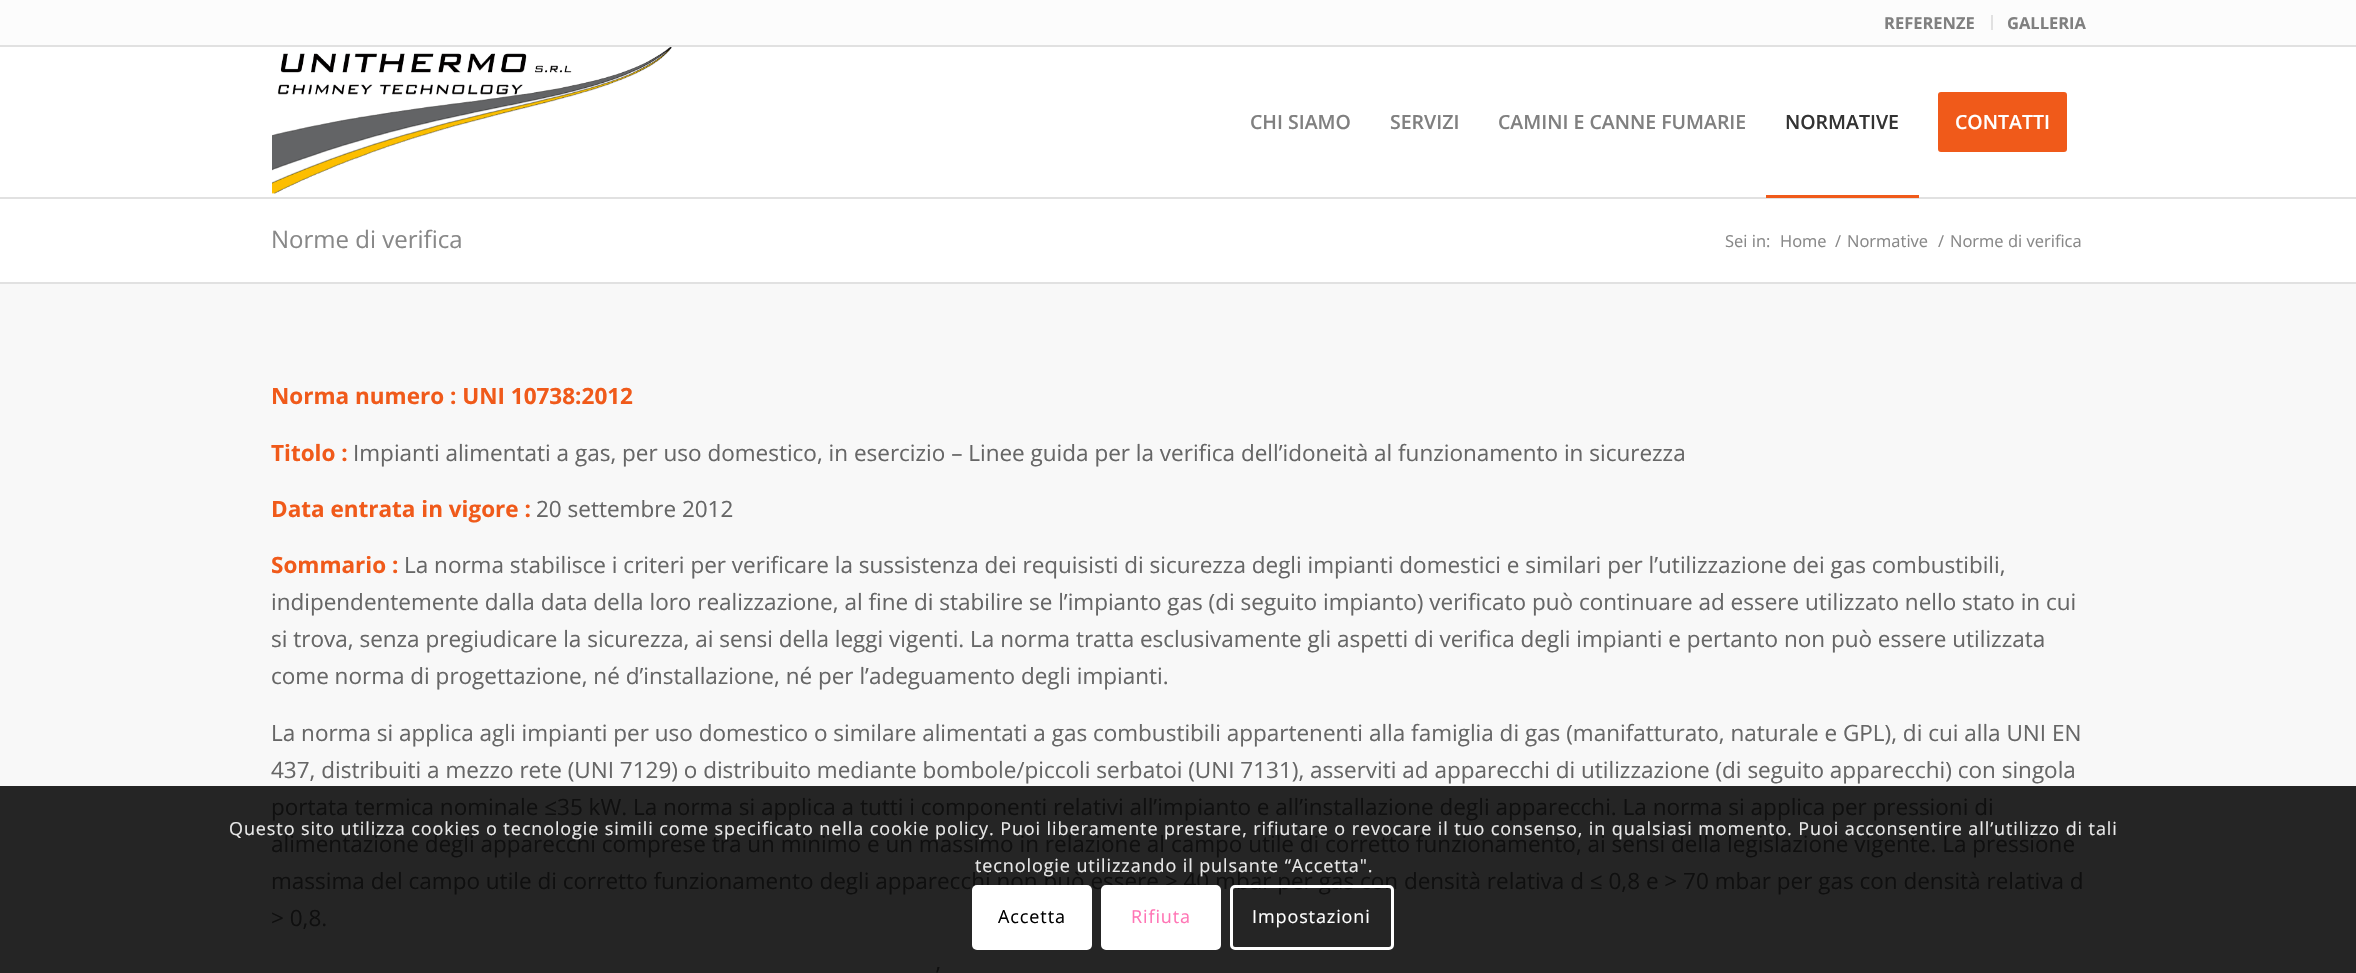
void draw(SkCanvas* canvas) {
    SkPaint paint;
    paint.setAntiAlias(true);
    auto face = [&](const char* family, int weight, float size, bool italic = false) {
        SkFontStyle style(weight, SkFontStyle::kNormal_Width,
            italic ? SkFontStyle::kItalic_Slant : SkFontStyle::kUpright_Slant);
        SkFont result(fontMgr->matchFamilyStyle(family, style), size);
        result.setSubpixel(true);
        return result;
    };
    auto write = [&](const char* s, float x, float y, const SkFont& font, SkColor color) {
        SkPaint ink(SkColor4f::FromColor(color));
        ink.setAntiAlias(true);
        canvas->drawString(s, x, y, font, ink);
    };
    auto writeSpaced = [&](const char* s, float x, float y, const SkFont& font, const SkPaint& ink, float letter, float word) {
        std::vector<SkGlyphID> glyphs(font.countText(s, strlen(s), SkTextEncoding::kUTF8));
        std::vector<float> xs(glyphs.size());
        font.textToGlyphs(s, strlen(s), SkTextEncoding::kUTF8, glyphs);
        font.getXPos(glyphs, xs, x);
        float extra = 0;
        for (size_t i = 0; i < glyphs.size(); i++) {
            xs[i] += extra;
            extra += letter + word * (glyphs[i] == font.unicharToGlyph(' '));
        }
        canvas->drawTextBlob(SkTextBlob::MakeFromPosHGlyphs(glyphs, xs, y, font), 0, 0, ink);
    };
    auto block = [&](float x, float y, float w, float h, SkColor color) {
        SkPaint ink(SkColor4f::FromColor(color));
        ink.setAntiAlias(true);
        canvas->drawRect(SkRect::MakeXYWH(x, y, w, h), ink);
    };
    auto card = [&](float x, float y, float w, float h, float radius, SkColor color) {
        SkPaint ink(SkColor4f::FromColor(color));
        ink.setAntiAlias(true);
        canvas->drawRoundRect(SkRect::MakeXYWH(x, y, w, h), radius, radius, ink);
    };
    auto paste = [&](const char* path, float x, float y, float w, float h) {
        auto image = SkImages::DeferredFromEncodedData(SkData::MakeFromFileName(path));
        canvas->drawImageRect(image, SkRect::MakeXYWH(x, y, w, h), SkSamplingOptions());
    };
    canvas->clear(SK_ColorWHITE);
    block(0, 0, 2356, 45, SkColorSetRGB(252, 252, 252));
    block(0, 45, 2356, 2, SkColorSetRGB(225, 225, 225));
    block(1991, 15, 2, 15, SkColorSetRGB(225, 225, 225));
    auto kFont1 = face("Open Sans", 700, 16.5f);
    write("REFERENZE", 1884, 29, kFont1, SkColorSetRGB(128, 128, 128));
    write("GALLERIA", 2007, 29, kFont1, SkColorSetRGB(128, 128, 128));
    block(0, 197, 2356, 2, SkColorSetRGB(225, 225, 225));
    paste("pic1.png", 272, 47, 400, 147);
    auto kFont2 = face("Open Sans", 600, 19.5f);
    write("CHI SIAMO", 1250, 129, kFont2, SkColorSetRGB(128, 128, 128));
    write("SERVIZI", 1390, 129, kFont2, SkColorSetRGB(128, 128, 128));
    write("CAMINI E CANNE FUMARIE", 1498, 129, kFont2, SkColorSetRGB(128, 128, 128));
    write("NORMATIVE", 1785, 129, kFont2, SkColorSetRGB(51, 51, 51));
    block(1766, 195, 153, 3, SkColorSetRGB(240, 90, 26));
    paint.setColor(SkColorSetRGB(240, 90, 26));
    canvas->drawRoundRect(SkRect::MakeXYWH(1939.5f, 93.5f, 126, 57), 1.5f, 1.5f, paint);
    paint.setStyle(SkPaint::kStroke_Style);
    paint.setStrokeWidth(3);
    canvas->drawRoundRect(SkRect::MakeXYWH(1939.5f, 93.5f, 126, 57), 1.5f, 1.5f, paint);
    write("CONTATTI", 1955, 129, kFont2, SK_ColorWHITE);
    auto kFont3 = face("Open Sans", 400, 24);
    write("Norme di verifica", 271, 248, kFont3, SkColorSetRGB(136, 136, 136));
    auto kFont4 = face("Open Sans", 400, 16.5f);
    write("Sei in:", 1725, 247, kFont4, SkColorSetRGB(136, 136, 136));
    write("Home", 1780, 247, kFont4, SkColorSetRGB(136, 136, 136));
    write("/", 1835, 247, kFont4, SkColorSetRGB(136, 136, 136));
    write("Normative", 1847, 247, kFont4, SkColorSetRGB(136, 136, 136));
    write("/", 1938, 247, kFont4, SkColorSetRGB(136, 136, 136));
    write("Norme di verifica", 1950, 247, kFont4, SkColorSetRGB(136, 136, 136));
    block(0, 284, 2356, 502, SkColorSetRGB(248, 248, 248));
    block(0, 786, 2356, 187, SkColorSetRGB(37, 37, 37));
    block(0, 282, 2356, 2, SkColorSetRGB(225, 225, 225));
    auto kFont5 = face("Open Sans", 700, 22.5f);
    write("Norma numero : UNI 10738:2012", 271, 404, kFont5, SkColorSetRGB(240, 90, 26));
    write("Titolo :", 271, 461, kFont5, SkColorSetRGB(240, 90, 26));
    auto kFont6 = face("Open Sans", 400, 22.5f);
    write("Impianti alimentati a gas, per uso domestico, in esercizio – Linee guida per la verifica dell’idoneità al funzionamento in sicurezza", 353, 461, kFont6, SkColorSetRGB(102, 102, 102));
    write("Data entrata in vigore :", 271, 517, kFont5, SkColorSetRGB(240, 90, 26));
    write("20 settembre 2012", 536, 517, kFont6, SkColorSetRGB(102, 102, 102));
    write("Sommario :", 271, 573, kFont5, SkColorSetRGB(240, 90, 26));
    write("La norma stabilisce i criteri per verificare la sussistenza dei requisisti di sicurezza degli impianti domestici e similari per l’utilizzazione dei gas combustibili,", 404, 573, kFont6, SkColorSetRGB(102, 102, 102));
    write("indipendentemente dalla data della loro realizzazione, al fine di stabilire se l’impianto gas (di seguito impianto) verificato può continuare ad essere utilizzato nello stato in cui", 271, 610, kFont6, SkColorSetRGB(102, 102, 102));
    write("si trova, senza pregiudicare la sicurezza, ai sensi della leggi vigenti. La norma tratta esclusivamente gli aspetti di verifica degli impianti e pertanto non può essere utilizzata", 271, 647, kFont6, SkColorSetRGB(102, 102, 102));
    write("come norma di progettazione, né d’installazione, né per l’adeguamento degli impianti.", 271, 684, kFont6, SkColorSetRGB(102, 102, 102));
    write("La norma si applica agli impianti per uso domestico o similare alimentati a gas combustibili appartenenti alla famiglia di gas (manifatturato, naturale e GPL), di cui alla UNI EN", 271, 741, kFont6, SkColorSetRGB(102, 102, 102));
    write("437, distribuiti a mezzo rete (UNI 7129) o distribuito mediante bombole/piccoli serbatoi (UNI 7131), asserviti ad apparecchi di utilizzazione (di seguito apparecchi) con singola", 271, 778, kFont6, SkColorSetRGB(102, 102, 102));
    write("portata termica nominale ≤35 kW. La norma si applica a tutti i componenti relativi all’impianto e all’installazione degli apparecchi. La norma si applica per pressioni di", 271, 815, kFont6, SkColorSetRGB(15, 15, 15));
    write("alimentazione degli apparecchi comprese tra un minimo e un massimo in relazione al campo utile di corretto funzionamento, ai sensi della legislazione vigente. La pressione", 271, 852, kFont6, SkColorSetRGB(15, 15, 15));
    write("massima del campo utile di corretto funzionamento degli apparecchi non può essere > 40 mbar per gas con densità relativa d ≤ 0,8 e > 70 mbar per gas con densità relativa d", 271, 889, kFont6, SkColorSetRGB(15, 15, 15));
    write("> 0,8.", 271, 926, kFont6, SkColorSetRGB(15, 15, 15));
    write("’", 936, 983, kFont6, SkColorSetRGB(15, 15, 15));
    auto kFont7 = face("Open Sans", 400, 18);
    paint.setStyle(SkPaint::kFill_Style);
    paint.setColor(SkColorSetRGB(233, 233, 233));
    writeSpaced("Questo sito utilizza cookies o tecnologie simili come specificato nella cookie policy. Puoi liberamente prestare, rifiutare o revocare il tuo consenso, in qualsiasi momento. Puoi acconsentire all’utilizzo di tali", 229, 835, kFont7, paint, 0.9f, 0);
    writeSpaced("tecnologie utilizzando il pulsante “Accetta\".", 975, 872, kFont7, paint, 0.9f, 0);
    card(972, 885, 120, 65, 5, SK_ColorWHITE);
    paint.setColor(SK_ColorBLACK);
    writeSpaced("Accetta", 998, 923, kFont7, paint, 0.9f, 0);
    paint.setColor(SK_ColorWHITE);
    canvas->drawRoundRect(SkRect::MakeXYWH(1102.5f, 886.5f, 117, 62), 3.5f, 3.5f, paint);
    paint.setStyle(SkPaint::kStroke_Style);
    canvas->drawRoundRect(SkRect::MakeXYWH(1102.5f, 886.5f, 117, 62), 3.5f, 3.5f, paint);
    paint.setStyle(SkPaint::kFill_Style);
    paint.setColor(SkColorSetRGB(255, 117, 181));
    writeSpaced("Rifiuta", 1131, 923, kFont7, paint, 0.9f, 0);
    paint.setStyle(SkPaint::kStroke_Style);
    paint.setColor(SK_ColorWHITE);
    canvas->drawRoundRect(SkRect::MakeXYWH(1231.5f, 886.5f, 161, 62), 3.5f, 3.5f, paint);
    paint.setStyle(SkPaint::kFill_Style);
    writeSpaced("Impostazioni", 1252, 923, kFont7, paint, 0.9f, 0);
}
